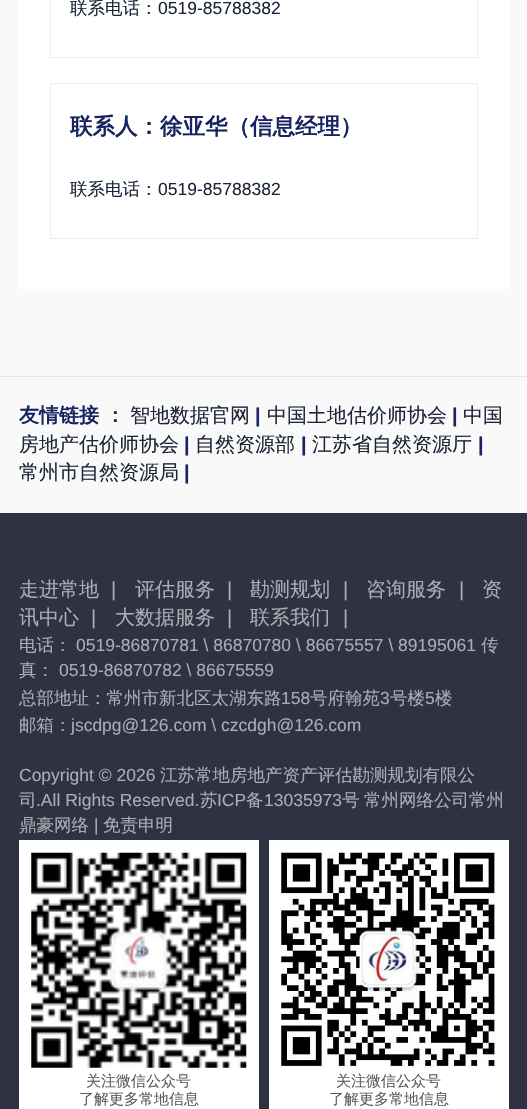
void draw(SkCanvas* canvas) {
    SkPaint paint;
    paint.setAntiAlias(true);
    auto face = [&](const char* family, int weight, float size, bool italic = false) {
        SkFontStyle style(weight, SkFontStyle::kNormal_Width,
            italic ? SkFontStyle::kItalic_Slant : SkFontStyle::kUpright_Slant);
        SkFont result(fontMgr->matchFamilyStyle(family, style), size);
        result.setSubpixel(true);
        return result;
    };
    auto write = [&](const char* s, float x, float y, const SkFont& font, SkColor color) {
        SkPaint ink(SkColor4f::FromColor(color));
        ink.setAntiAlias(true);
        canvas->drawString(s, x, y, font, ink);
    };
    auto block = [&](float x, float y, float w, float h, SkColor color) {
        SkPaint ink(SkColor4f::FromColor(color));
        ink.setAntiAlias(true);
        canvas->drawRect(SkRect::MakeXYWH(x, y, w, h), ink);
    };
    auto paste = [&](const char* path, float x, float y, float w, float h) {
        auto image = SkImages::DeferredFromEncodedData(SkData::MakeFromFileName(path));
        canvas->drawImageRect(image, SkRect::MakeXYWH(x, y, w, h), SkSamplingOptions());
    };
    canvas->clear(SkColorSetRGB(249, 249, 249));
    block(0, 376, 527, 1, SkColorSetRGB(229, 229, 229));
    block(19, 0, 490, 289, SK_ColorWHITE);
    paint.setStyle(SkPaint::kStroke_Style);
    paint.setStrokeWidth(1);
    paint.setColor(SkColorSetRGB(236, 236, 236));
    canvas->drawRect(SkRect::MakeXYWH(50.5f, -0.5f, 427, 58), paint);
    auto kFont1 = face("WenQuanYi Zen Hei", 500, 17.5f);
    write("联系电话：", 70, 14, kFont1, SkColorSetRGB(28, 37, 55));
    auto kFont2 = face("Liberation Sans", 400, 17.5f);
    write("0519-85788382", 158, 14, kFont2, SkColorSetRGB(28, 37, 55));
    canvas->drawRect(SkRect::MakeXYWH(50.5f, 83.5f, 427, 155), paint);
    auto kFont3 = face("WenQuanYi Zen Hei", 700, 22.5f);
    write("联系人：徐亚华（信息经理）", 70, 134, kFont3, SkColorSetRGB(24, 35, 97));
    write("联系电话：", 70, 195, kFont1, SkColorSetRGB(28, 37, 55));
    write("0519-85788382", 158, 195, kFont2, SkColorSetRGB(28, 37, 55));
    auto kFont4 = face("WenQuanYi Zen Hei", 700, 20);
    write("友情链接 ：", 19, 422, kFont4, SkColorSetRGB(24, 35, 97));
    auto kFont5 = face("WenQuanYi Zen Hei", 500, 20);
    write("智地数据官网", 130, 422, kFont5, SkColorSetRGB(28, 37, 55));
    auto kFont6 = face("Liberation Sans", 700, 20);
    write("|", 255, 422, kFont6, SkColorSetRGB(24, 35, 97));
    write("中国土地估价师协会", 267, 422, kFont5, SkColorSetRGB(28, 37, 55));
    write("|", 452, 422, kFont6, SkColorSetRGB(24, 35, 97));
    write("中国", 463, 422, kFont5, SkColorSetRGB(28, 37, 55));
    write("房地产估价师协会", 19, 451, kFont5, SkColorSetRGB(28, 37, 55));
    write("|", 184, 451, kFont6, SkColorSetRGB(24, 35, 97));
    write("自然资源部", 195, 451, kFont5, SkColorSetRGB(28, 37, 55));
    write("|", 301, 451, kFont6, SkColorSetRGB(24, 35, 97));
    write("江苏省自然资源厅", 312, 451, kFont5, SkColorSetRGB(28, 37, 55));
    write("|", 478, 451, kFont6, SkColorSetRGB(24, 35, 97));
    write("常州市自然资源局", 19, 479, kFont5, SkColorSetRGB(28, 37, 55));
    write("|", 184, 479, kFont6, SkColorSetRGB(24, 35, 97));
    block(0, 513, 527, 596, SkColorSetRGB(47, 50, 67));
    write("走进常地", 19, 596, kFont5, SkColorSetRGB(172, 173, 178));
    auto kFont7 = face("Liberation Sans", 400, 20);
    write("|", 111, 596, kFont7, SkColorSetRGB(172, 173, 178));
    write("评估服务", 135, 596, kFont5, SkColorSetRGB(172, 173, 178));
    write("|", 227, 596, kFont7, SkColorSetRGB(172, 173, 178));
    write("勘测规划", 250, 596, kFont5, SkColorSetRGB(172, 173, 178));
    write("|", 343, 596, kFont7, SkColorSetRGB(172, 173, 178));
    write("咨询服务", 366, 596, kFont5, SkColorSetRGB(172, 173, 178));
    write("|", 459, 596, kFont7, SkColorSetRGB(172, 173, 178));
    write("资", 482, 596, kFont5, SkColorSetRGB(172, 173, 178));
    write("讯中心", 19, 624, kFont5, SkColorSetRGB(172, 173, 178));
    write("|", 91, 624, kFont7, SkColorSetRGB(172, 173, 178));
    write("大数据服务", 115, 624, kFont5, SkColorSetRGB(172, 173, 178));
    write("|", 227, 624, kFont7, SkColorSetRGB(172, 173, 178));
    write("联系我们", 250, 624, kFont5, SkColorSetRGB(172, 173, 178));
    write("|", 343, 624, kFont7, SkColorSetRGB(172, 173, 178));
    write("电话：", 19, 651, kFont1, SkColorSetRGB(172, 173, 178));
    write("0519-86870781 \\ 86870780 \\ 86675557 \\ 89195061", 76, 651, kFont2, SkColorSetRGB(172, 173, 178));
    write("传", 481, 651, kFont1, SkColorSetRGB(172, 173, 178));
    write("真：", 19, 676, kFont1, SkColorSetRGB(172, 173, 178));
    write("0519-86870782 \\ 86675559", 59, 676, kFont2, SkColorSetRGB(172, 173, 178));
    write("总部地址：常州市新北区太湖东路", 19, 704, kFont1, SkColorSetRGB(172, 173, 178));
    write("158", 281, 704, kFont2, SkColorSetRGB(172, 173, 178));
    write("号府翰苑", 310, 704, kFont1, SkColorSetRGB(172, 173, 178));
    write("3", 380, 704, kFont2, SkColorSetRGB(172, 173, 178));
    write("号楼", 390, 704, kFont1, SkColorSetRGB(172, 173, 178));
    write("5", 425, 704, kFont2, SkColorSetRGB(172, 173, 178));
    write("楼", 435, 704, kFont1, SkColorSetRGB(172, 173, 178));
    write("邮箱：", 19, 731, kFont1, SkColorSetRGB(172, 173, 178));
    write("jscdpg@126.com \\ czcdgh@126.com", 71, 731, kFont2, SkColorSetRGB(172, 173, 178));
    write("Copyright © 2026", 19, 781, kFont2, SkColorSetRGB(172, 173, 178));
    write("江苏常地房地产资产评估勘测规划有限公", 160, 781, kFont1, SkColorSetRGB(172, 173, 178));
    write("司", 19, 806, kFont1, SkColorSetRGB(172, 173, 178));
    write(".All Rights Reserved.", 36, 806, kFont2, SkColorSetRGB(172, 173, 178));
    write("苏", 200, 806, kFont1, SkColorSetRGB(172, 173, 178));
    write("ICP", 217, 806, kFont2, SkColorSetRGB(172, 173, 178));
    write("备", 246, 806, kFont1, SkColorSetRGB(172, 173, 178));
    write("13035973", 264, 806, kFont2, SkColorSetRGB(172, 173, 178));
    write("号", 342, 806, kFont1, SkColorSetRGB(172, 173, 178));
    write("常州网络公司常州", 364, 806, kFont1, SkColorSetRGB(172, 173, 178));
    write("鼎豪网络", 19, 831, kFont1, SkColorSetRGB(172, 173, 178));
    write("|", 94, 831, kFont2, SkColorSetRGB(172, 173, 178));
    write("免责申明", 103, 831, kFont1, SkColorSetRGB(172, 173, 178));
    block(19, 840, 240, 269, SK_ColorWHITE);
    paste("pic1.png", 31, 852, 216, 216);
    auto kFont8 = face("WenQuanYi Zen Hei", 500, 15);
    write("关注微信公众号", 86, 1086, kFont8, SkColorSetRGB(92, 92, 92));
    write("了解更多常地信息", 79, 1104, kFont8, SkColorSetRGB(92, 92, 92));
    block(269, 840, 240, 269, SK_ColorWHITE);
    paste("pic2.png", 281, 852, 215, 216);
    write("关注微信公众号", 336, 1086, kFont8, SkColorSetRGB(92, 92, 92));
    write("了解更多常地信息", 329, 1104, kFont8, SkColorSetRGB(92, 92, 92));
}
